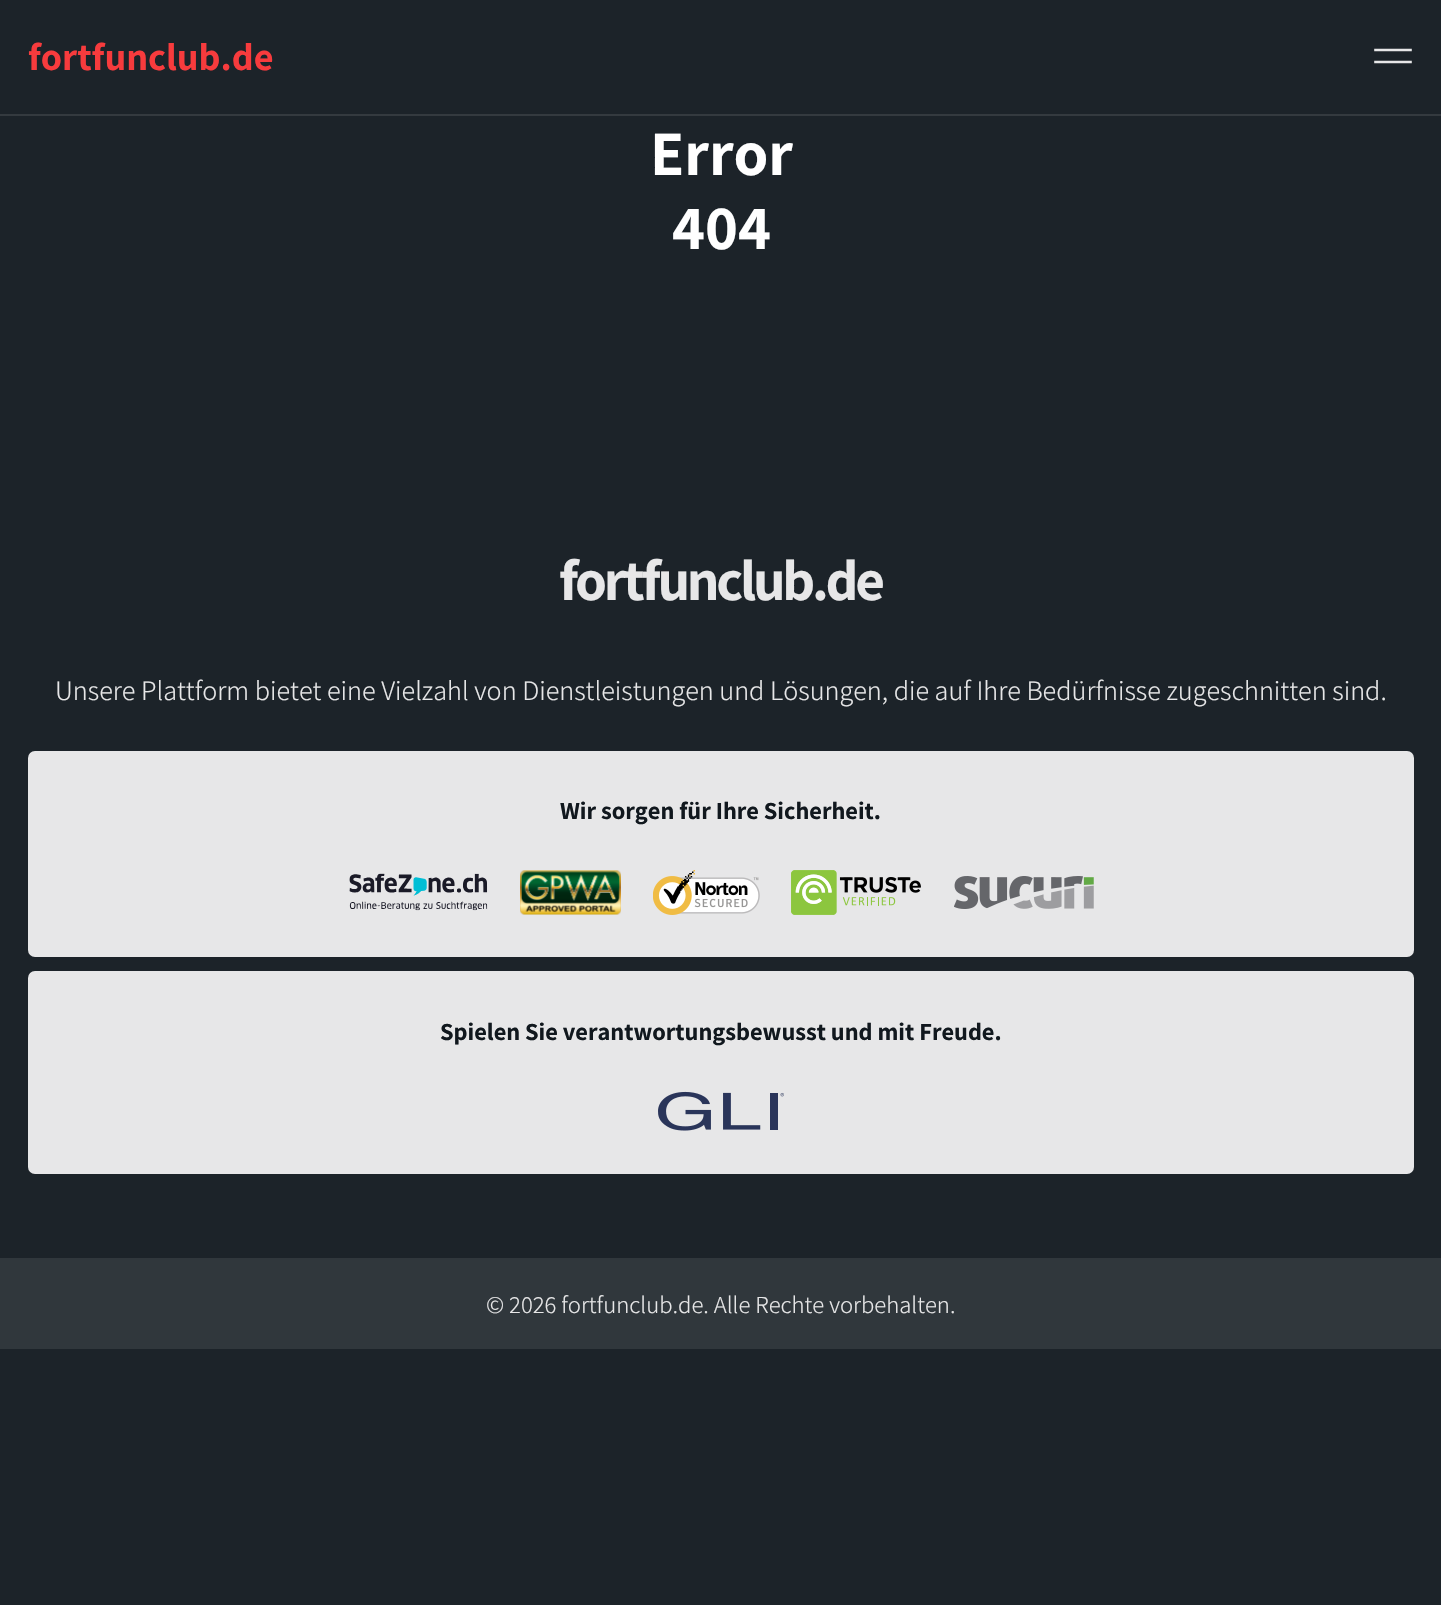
void draw(SkCanvas* canvas) {
    SkPaint paint;
    paint.setAntiAlias(true);
    auto face = [&](const char* family, int weight, float size, bool italic = false) {
        SkFontStyle style(weight, SkFontStyle::kNormal_Width,
            italic ? SkFontStyle::kItalic_Slant : SkFontStyle::kUpright_Slant);
        SkFont result(fontMgr->matchFamilyStyle(family, style), size);
        result.setSubpixel(true);
        return result;
    };
    auto write = [&](const char* s, float x, float y, const SkFont& font, SkColor color) {
        SkPaint ink(SkColor4f::FromColor(color));
        ink.setAntiAlias(true);
        canvas->drawString(s, x, y, font, ink);
    };
    auto writeSpaced = [&](const char* s, float x, float y, const SkFont& font, const SkPaint& ink, float letter, float word) {
        std::vector<SkGlyphID> glyphs(font.countText(s, strlen(s), SkTextEncoding::kUTF8));
        std::vector<float> xs(glyphs.size());
        font.textToGlyphs(s, strlen(s), SkTextEncoding::kUTF8, glyphs);
        font.getXPos(glyphs, xs, x);
        float extra = 0;
        for (size_t i = 0; i < glyphs.size(); i++) {
            xs[i] += extra;
            extra += letter + word * (glyphs[i] == font.unicharToGlyph(' '));
        }
        canvas->drawTextBlob(SkTextBlob::MakeFromPosHGlyphs(glyphs, xs, y, font), 0, 0, ink);
    };
    auto block = [&](float x, float y, float w, float h, SkColor color) {
        SkPaint ink(SkColor4f::FromColor(color));
        ink.setAntiAlias(true);
        canvas->drawRect(SkRect::MakeXYWH(x, y, w, h), ink);
    };
    auto card = [&](float x, float y, float w, float h, float radius, SkColor color) {
        SkPaint ink(SkColor4f::FromColor(color));
        ink.setAntiAlias(true);
        canvas->drawRoundRect(SkRect::MakeXYWH(x, y, w, h), radius, radius, ink);
    };
    auto paste = [&](const char* path, float x, float y, float w, float h) {
        auto image = SkImages::DeferredFromEncodedData(SkData::MakeFromFileName(path));
        canvas->drawImageRect(image, SkRect::MakeXYWH(x, y, w, h), SkSamplingOptions());
    };
    canvas->clear(SkColorSetRGB(28, 35, 41));
    block(0, 114, 1441, 2, SkColorSetRGB(52, 58, 63));
    auto kFont1 = face("Assistant", 200, 38.5f);
    write("fortfunclub.de", 28, 70, kFont1, SkColorSetRGB(247, 59, 61));
    paint.setStyle(SkPaint::kStroke_Style);
    paint.setStrokeWidth(2.6f);
    paint.setStrokeCap(SkPaint::kSquare_Cap);
    paint.setColor(SkColorSetRGB(231, 231, 232));
    canvas->drawPath(SkPathBuilder().moveTo(1375.5f, 50).lineTo(1410.5f, 50).moveTo(1375.5f, 62).lineTo(1410.5f, 62).detach(), paint);
    auto kFont2 = face("Assistant", 200, 63);
    write("Error", 650, 175, kFont2, SK_ColorWHITE);
    write("404", 672, 249, kFont2, SK_ColorWHITE);
    auto kFont3 = face("Assistant", 200, 57.75f);
    paint.setStyle(SkPaint::kFill_Style);
    writeSpaced("fortfunclub.de", 559, 600, kFont3, paint, -3.25f, 0);
    auto kFont4 = face("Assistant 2", 200, 28);
    write("Unsere Plattform bietet eine Vielzahl von Dienstleistungen und Lösungen, die auf Ihre Bedürfnisse zugeschnitten sind.", 55, 700, kFont4, SkColorSetRGB(231, 231, 232));
    card(28, 751, 1386, 206, 7, SkColorSetRGB(231, 231, 232));
    auto kFont5 = face("Assistant", 200, 24.5f);
    write("Wir sorgen für Ihre Sicherheit.", 560, 819, kFont5, SkColorSetRGB(17, 24, 30));
    paste("pic1.png", 349, 873, 139, 38);
    paste("pic2.png", 520, 870, 101, 45);
    paste("pic3.png", 653, 870, 107, 45);
    paste("pic4.png", 791, 870, 130, 45);
    paste("pic5.png", 954, 876, 140, 33);
    card(28, 971, 1386, 203, 7, SkColorSetRGB(231, 231, 232));
    write("Spielen Sie verantwortungsbewusst und mit Freude.", 440, 1040, kFont5, SkColorSetRGB(17, 24, 30));
    paste("pic6.png", 658, 1091, 126, 40);
    block(0, 1258, 1441, 91, SkColorSetRGB(48, 55, 60));
    auto kFont6 = face("Assistant 2", 200, 24.5f);
    write("© 2026 fortfunclub.de. Alle Rechte vorbehalten.", 486, 1313, kFont6, SkColorSetRGB(231, 231, 232));
}
